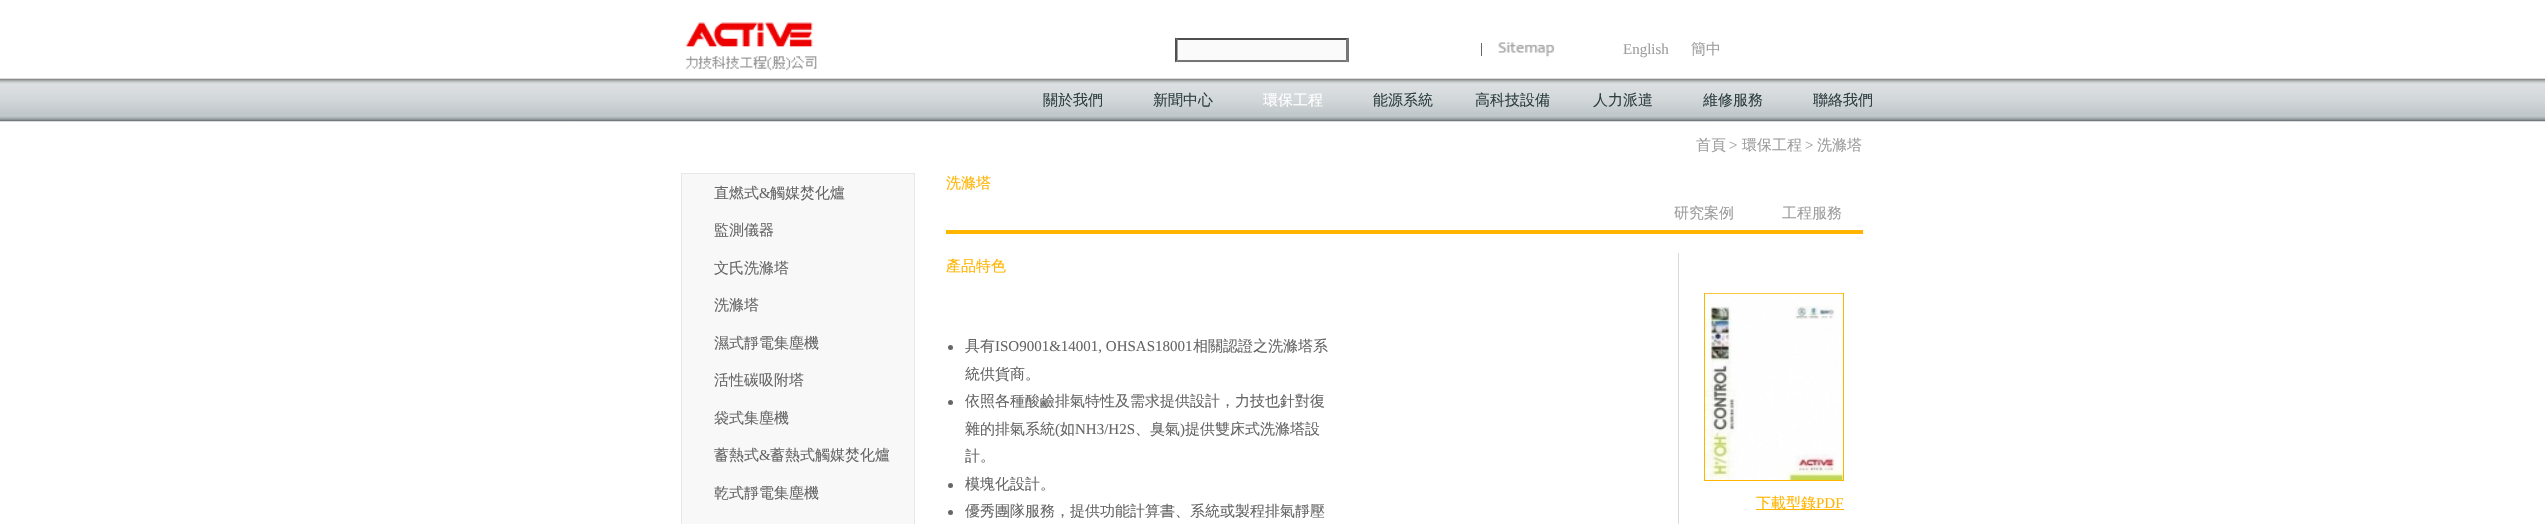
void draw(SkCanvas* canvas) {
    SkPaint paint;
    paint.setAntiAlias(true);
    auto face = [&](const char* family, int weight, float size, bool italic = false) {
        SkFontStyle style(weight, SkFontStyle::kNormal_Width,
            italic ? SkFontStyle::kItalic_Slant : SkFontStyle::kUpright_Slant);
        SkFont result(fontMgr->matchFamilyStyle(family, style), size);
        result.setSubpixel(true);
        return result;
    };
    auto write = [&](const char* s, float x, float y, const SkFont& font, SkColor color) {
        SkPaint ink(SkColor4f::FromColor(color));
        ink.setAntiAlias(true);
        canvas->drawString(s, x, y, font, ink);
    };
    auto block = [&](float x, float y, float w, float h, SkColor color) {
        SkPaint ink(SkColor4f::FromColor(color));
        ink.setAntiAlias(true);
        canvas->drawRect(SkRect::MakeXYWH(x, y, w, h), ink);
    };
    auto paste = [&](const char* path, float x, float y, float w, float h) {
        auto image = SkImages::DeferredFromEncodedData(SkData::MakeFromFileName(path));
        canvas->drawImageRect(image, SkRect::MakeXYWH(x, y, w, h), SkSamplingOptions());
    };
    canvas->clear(SK_ColorWHITE);
    paste("pic1.png", 0, 78, 2545, 44);
    paste("pic2.png", 686, 22, 131, 49);
    block(1175, 38, 174, 25, SkColorSetRGB(250, 250, 250));
    paint.setColor(SkColorSetRGB(79, 79, 79));
    canvas->drawPath(SkPathBuilder().moveTo(1175, 38).lineTo(1349, 38).lineTo(1346, 40).lineTo(1178, 40).close().detach(), paint);
    paint.setColor(SkColorSetRGB(118, 118, 118));
    canvas->drawPath(SkPathBuilder().moveTo(1349, 37.5f).lineTo(1349, 62.5f).lineTo(1346, 60).lineTo(1346, 40).close().detach(), paint);
    canvas->drawPath(SkPathBuilder().moveTo(1349, 62).lineTo(1175, 62).lineTo(1178, 60).lineTo(1346, 60).close().detach(), paint);
    paint.setColor(SkColorSetRGB(79, 79, 79));
    canvas->drawPath(SkPathBuilder().moveTo(1175, 62.5f).lineTo(1175, 37.5f).lineTo(1177.5f, 40).lineTo(1177.5f, 60).close().detach(), paint);
    block(1481, 43, 1, 13, SkColorSetRGB(102, 102, 102));
    paste("pic3.png", 1498, 42, 57, 15);
    auto kFont1 = face("Liberation Serif", 400, 15);
    write("English", 1623, 54, kFont1, SkColorSetRGB(157, 157, 157));
    auto kFont2 = face("WenQuanYi Zen Hei", 500, 15);
    write("簡中", 1691, 54, kFont2, SkColorSetRGB(157, 157, 157));
    write("關於我們", 1043, 105, kFont2, SkColorSetRGB(46, 63, 66));
    write("新聞中心", 1153, 105, kFont2, SkColorSetRGB(46, 63, 66));
    write("環保工程", 1263, 105, kFont2, SK_ColorWHITE);
    write("能源系統", 1373, 105, kFont2, SkColorSetRGB(46, 63, 66));
    write("高科技設備", 1475, 105, kFont2, SkColorSetRGB(46, 63, 66));
    write("人力派遣", 1593, 105, kFont2, SkColorSetRGB(46, 63, 66));
    write("維修服務", 1703, 105, kFont2, SkColorSetRGB(46, 63, 66));
    write("聯絡我們", 1813, 105, kFont2, SkColorSetRGB(46, 63, 66));
    paint.setColor(SkColorSetRGB(248, 248, 248));
    canvas->drawRect(SkRect::MakeXYWH(681.5f, 173.5f, 233, 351), paint);
    paint.setStyle(SkPaint::kStroke_Style);
    paint.setStrokeWidth(1);
    paint.setColor(SkColorSetRGB(231, 231, 231));
    canvas->drawRect(SkRect::MakeXYWH(681.5f, 173.5f, 233, 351), paint);
    write("直燃式", 714, 198, kFont2, SkColorSetRGB(102, 102, 102));
    write("&", 759, 198, kFont1, SkColorSetRGB(102, 102, 102));
    write("觸媒焚化爐", 770, 198, kFont2, SkColorSetRGB(102, 102, 102));
    write("監測儀器", 714, 235, kFont2, SkColorSetRGB(102, 102, 102));
    write("文氏洗滌塔", 714, 273, kFont2, SkColorSetRGB(102, 102, 102));
    write("洗滌塔", 714, 310, kFont2, SkColorSetRGB(102, 102, 102));
    write("濕式靜電集塵機", 714, 348, kFont2, SkColorSetRGB(102, 102, 102));
    write("活性碳吸附塔", 714, 385, kFont2, SkColorSetRGB(102, 102, 102));
    write("袋式集塵機", 714, 423, kFont2, SkColorSetRGB(102, 102, 102));
    write("蓄熱式", 714, 460, kFont2, SkColorSetRGB(102, 102, 102));
    write("&", 759, 460, kFont1, SkColorSetRGB(102, 102, 102));
    write("蓄熱式觸媒焚化爐", 770, 460, kFont2, SkColorSetRGB(102, 102, 102));
    write("乾式靜電集塵機", 714, 498, kFont2, SkColorSetRGB(102, 102, 102));
    write("首頁", 1696, 150, kFont2, SkColorSetRGB(157, 157, 157));
    write(">", 1729, 150, kFont1, SkColorSetRGB(157, 157, 157));
    write("環保工程", 1742, 150, kFont2, SkColorSetRGB(157, 157, 157));
    write(">", 1805, 150, kFont1, SkColorSetRGB(157, 157, 157));
    write("洗滌塔", 1817, 150, kFont2, SkColorSetRGB(157, 157, 157));
    block(946, 230, 917, 4, SkColorSetRGB(255, 180, 0));
    write("洗滌塔", 946, 188, kFont2, SkColorSetRGB(255, 180, 0));
    write("研究案例", 1674, 218, kFont2, SkColorSetRGB(157, 157, 157));
    write("工程服務", 1782, 218, kFont2, SkColorSetRGB(157, 157, 157));
    block(1678, 253, 1, 271, SkColorSetRGB(218, 218, 218));
    write("產品特色", 946, 271, kFont2, SkColorSetRGB(255, 180, 0));
    paint.setStyle(SkPaint::kFill_Style);
    paint.setColor(SkColorSetRGB(102, 102, 102));
    canvas->drawCircle(950.5f, 347.5f, 2.5f, paint);
    write("具有", 965, 351, kFont2, SkColorSetRGB(102, 102, 102));
    write("ISO9001&14001, OHSAS18001", 995, 351, kFont1, SkColorSetRGB(102, 102, 102));
    write("相關認證之洗滌塔系", 1193, 351, kFont2, SkColorSetRGB(102, 102, 102));
    write("統供貨商。", 965, 379, kFont2, SkColorSetRGB(102, 102, 102));
    canvas->drawCircle(950.5f, 402.5f, 2.5f, paint);
    write("依照各種酸鹼排氣特性及需求提供設計，力技也針對復", 965, 406, kFont2, SkColorSetRGB(102, 102, 102));
    write("雜的排氣系統", 965, 434, kFont2, SkColorSetRGB(102, 102, 102));
    write("(", 1055, 434, kFont1, SkColorSetRGB(102, 102, 102));
    write("如", 1060, 434, kFont2, SkColorSetRGB(102, 102, 102));
    write("NH3/H2S", 1075, 434, kFont1, SkColorSetRGB(102, 102, 102));
    write("、臭氣", 1135, 434, kFont2, SkColorSetRGB(102, 102, 102));
    write(")", 1180, 434, kFont1, SkColorSetRGB(102, 102, 102));
    write("提供雙床式洗滌塔設", 1185, 434, kFont2, SkColorSetRGB(102, 102, 102));
    write("計。", 965, 461, kFont2, SkColorSetRGB(102, 102, 102));
    canvas->drawCircle(950.5f, 485.5f, 2.5f, paint);
    write("模塊化設計。", 965, 489, kFont2, SkColorSetRGB(102, 102, 102));
    canvas->drawCircle(950.5f, 512.5f, 2.5f, paint);
    write("優秀團隊服務，提供功能計算書、系統或製程排氣靜壓", 965, 516, kFont2, SkColorSetRGB(102, 102, 102));
    paint.setStyle(SkPaint::kStroke_Style);
    paint.setColor(SkColorSetRGB(255, 180, 0));
    canvas->drawRect(SkRect::MakeXYWH(1704.5f, 293.5f, 139, 187), paint);
    paste("pic4.png", 1705, 293, 138, 187);
    block(1756, 509, 88, 1, SkColorSetRGB(255, 180, 0));
    write("下載型錄", 1756, 508, kFont2, SkColorSetRGB(255, 180, 0));
    write("PDF", 1816, 508, kFont1, SkColorSetRGB(255, 180, 0));
}
